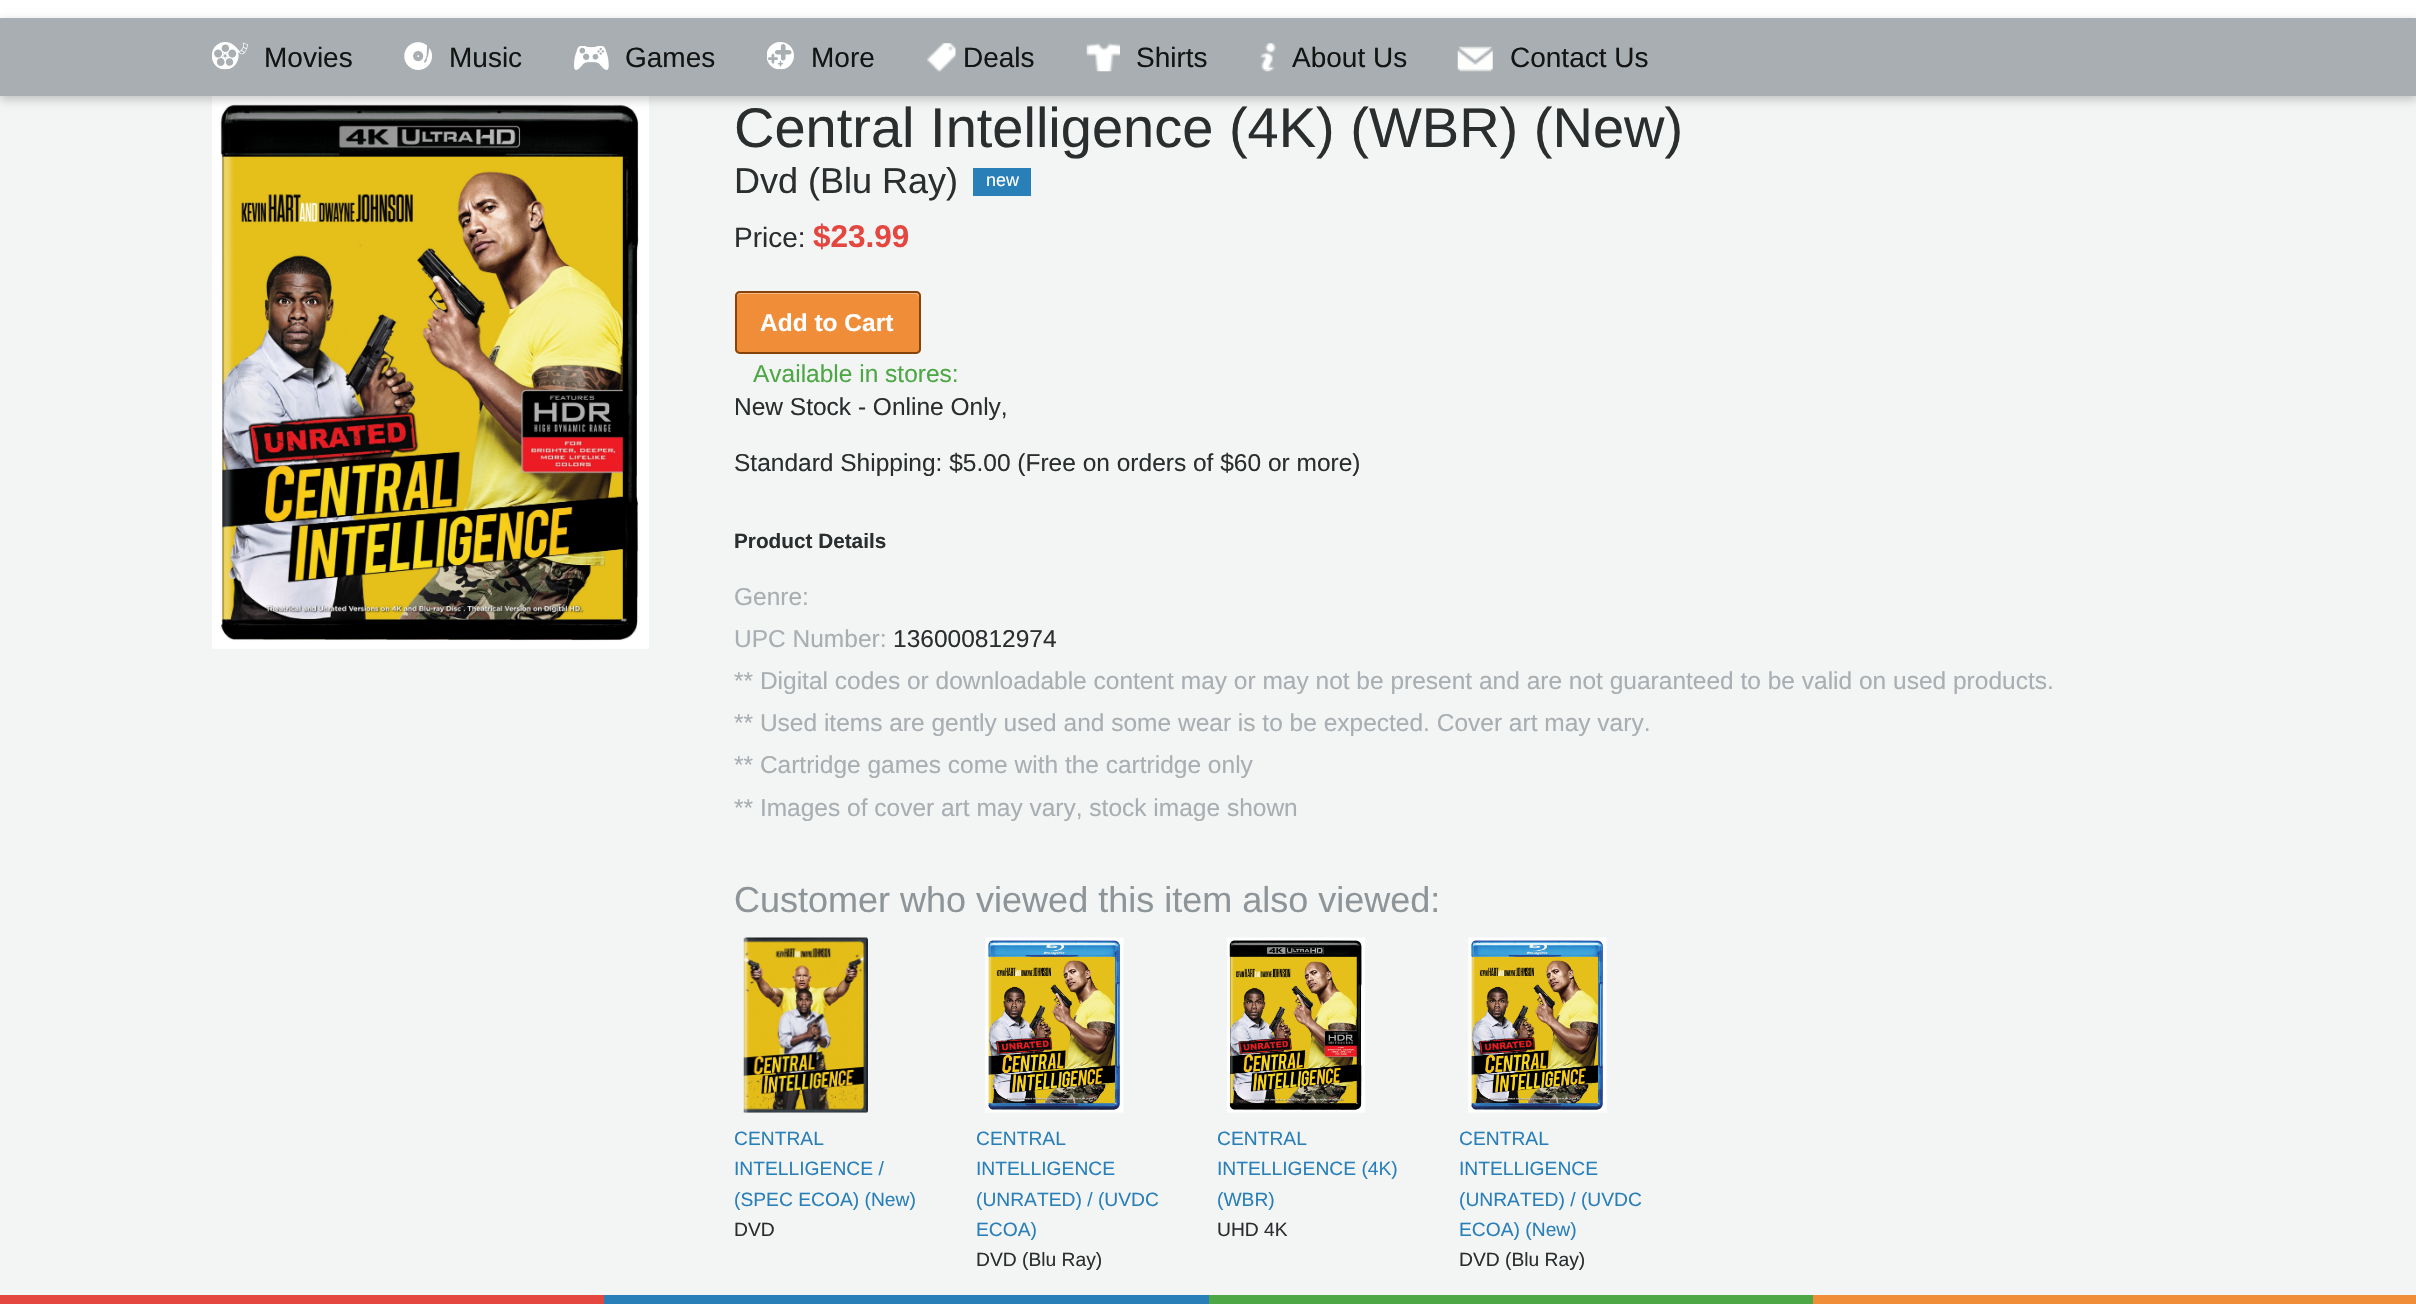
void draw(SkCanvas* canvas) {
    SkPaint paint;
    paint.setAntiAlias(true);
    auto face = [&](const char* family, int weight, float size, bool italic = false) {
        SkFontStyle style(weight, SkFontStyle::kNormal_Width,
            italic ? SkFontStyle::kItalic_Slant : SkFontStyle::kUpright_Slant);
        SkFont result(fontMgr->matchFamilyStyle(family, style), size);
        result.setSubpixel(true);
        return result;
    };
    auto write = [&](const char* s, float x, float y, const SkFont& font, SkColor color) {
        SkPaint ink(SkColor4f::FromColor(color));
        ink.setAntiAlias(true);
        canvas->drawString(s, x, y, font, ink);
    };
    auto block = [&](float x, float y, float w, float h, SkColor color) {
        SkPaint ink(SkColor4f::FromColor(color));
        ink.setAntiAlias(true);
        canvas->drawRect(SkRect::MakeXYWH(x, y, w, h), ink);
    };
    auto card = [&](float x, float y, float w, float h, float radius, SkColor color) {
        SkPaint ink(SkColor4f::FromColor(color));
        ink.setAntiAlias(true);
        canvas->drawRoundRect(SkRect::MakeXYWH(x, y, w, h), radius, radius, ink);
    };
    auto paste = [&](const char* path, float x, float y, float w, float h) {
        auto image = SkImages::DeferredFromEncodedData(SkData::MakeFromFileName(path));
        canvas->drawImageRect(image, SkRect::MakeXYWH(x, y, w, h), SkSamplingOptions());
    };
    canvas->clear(SkColorSetRGB(243, 244, 244));
    block(0, 0, 2416, 18, SK_ColorWHITE);
    paste("pic9.png", 212, 96, 437, 553);
    paint.setColor(SkColorSetARGB(51, 0, 0, 0));
    paint.setMaskFilter(SkMaskFilter::MakeBlur(kNormal_SkBlurStyle, 4.5f));
    canvas->drawRect(SkRect::MakeXYWH(0, 21, 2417, 79), paint);
    paint.setMaskFilter(nullptr);
    block(0, 18, 2416, 78, SkColorSetRGB(168, 174, 177));
    paste("pic1.png", 212, 42, 36, 28);
    auto kFont1 = face("Liberation Sans", 400, 28);
    write("Movies", 264, 67, kFont1, SkColorSetRGB(19, 20, 20));
    paste("pic2.png", 404, 42, 28, 28);
    write("Music", 449, 67, kFont1, SkColorSetRGB(19, 20, 20));
    paste("pic3.png", 574, 46, 35, 24);
    write("Games", 625, 67, kFont1, SkColorSetRGB(19, 20, 20));
    paste("pic4.png", 767, 42, 27, 28);
    write("More", 811, 67, kFont1, SkColorSetRGB(19, 20, 20));
    paste("pic5.png", 927, 43, 29, 29);
    write("Deals", 963, 67, kFont1, SkColorSetRGB(19, 20, 20));
    paste("pic6.png", 1086, 43, 34, 29);
    write("Shirts", 1136, 67, kFont1, SkColorSetRGB(19, 20, 20));
    paste("pic7.png", 1260, 43, 16, 29);
    write("About Us", 1292, 67, kFont1, SkColorSetRGB(19, 20, 20));
    paste("pic8.png", 1457, 46, 36, 26);
    write("Contact Us", 1510, 67, kFont1, SkColorSetRGB(19, 20, 20));
    auto kFont2 = face("Liberation Sans", 400, 56);
    write("Central Intelligence (4K) (WBR) (New)", 734, 147, kFont2, SkColorSetRGB(43, 46, 47));
    auto kFont3 = face("Liberation Sans", 400, 36);
    write("Dvd (Blu Ray)", 734, 193, kFont3, SkColorSetRGB(43, 46, 47));
    block(973, 168, 58, 28, SkColorSetRGB(41, 128, 185));
    auto kFont4 = face("Liberation Sans", 400, 18);
    write("new", 986, 186, kFont4, SK_ColorWHITE);
    write("Price:", 734, 247, kFont1, SkColorSetRGB(43, 46, 47));
    auto kFont5 = face("Liberation Sans", 700, 31.5f);
    write("$23.99", 813, 247, kFont5, SkColorSetRGB(228, 70, 64));
    card(735, 291, 186, 63, 5, SkColorSetRGB(240, 141, 57));
    paint.setColor(SkColorSetRGB(246, 187, 136));
    canvas->drawPath(SkPathBuilder().moveTo(740, 294).lineTo(915, 294).cubicTo(917, 294, 919, 296, 919, 298).lineTo(919, 296).cubicTo(919, 294, 917, 292, 915, 292).lineTo(741, 292).cubicTo(739, 292, 737, 294, 737, 296).lineTo(737, 298).cubicTo(737, 296, 738, 294, 740, 294).close().detach(), paint);
    paint.setStyle(SkPaint::kStroke_Style);
    paint.setStrokeWidth(2);
    paint.setColor(SkColorSetRGB(134, 67, 10));
    canvas->drawRoundRect(SkRect::MakeXYWH(736, 292, 184, 61), 4, 4, paint);
    auto kFont6 = face("Liberation Sans", 700, 24.5f);
    write("Add to Cart", 760, 331, kFont6, SK_ColorWHITE);
    auto kFont7 = face("Liberation Sans", 400, 24.5f);
    write("Available in stores:", 753, 382, kFont7, SkColorSetRGB(77, 167, 69));
    write("New Stock - Online Only,", 734, 415, kFont7, SkColorSetRGB(43, 46, 47));
    write("Standard Shipping: $5.00 (Free on orders of $60 or more)", 734, 471, kFont7, SkColorSetRGB(43, 46, 47));
    auto kFont8 = face("Liberation Sans", 700, 20.75f);
    write("Product Details", 734, 548, kFont8, SkColorSetRGB(43, 46, 47));
    write("Genre:", 734, 605, kFont7, SkColorSetRGB(168, 174, 177));
    write("UPC Number:", 734, 647, kFont7, SkColorSetRGB(168, 174, 177));
    write("136000812974", 893, 647, kFont7, SkColorSetRGB(43, 46, 47));
    write("** Digital codes or downloadable content may or may not be present and are not guaranteed to be valid on used products.", 734, 689, kFont7, SkColorSetRGB(168, 174, 177));
    write("** Used items are gently used and some wear is to be expected. Cover art may vary.", 734, 731, kFont7, SkColorSetRGB(168, 174, 177));
    write("** Cartridge games come with the cartridge only", 734, 773, kFont7, SkColorSetRGB(168, 174, 177));
    write("** Images of cover art may vary, stock image shown", 734, 816, kFont7, SkColorSetRGB(168, 174, 177));
    write("Customer who viewed this item also viewed:", 734, 912, kFont3, SkColorSetRGB(142, 149, 152));
    paste("pic10.png", 743, 937, 125, 176);
    auto kFont9 = face("Liberation Sans", 400, 19.25f);
    write("CENTRAL", 734, 1145, kFont9, SkColorSetRGB(41, 128, 185));
    write("INTELLIGENCE /", 734, 1175, kFont9, SkColorSetRGB(41, 128, 185));
    write("(SPEC ECOA) (New)", 734, 1206, kFont9, SkColorSetRGB(41, 128, 185));
    write("DVD", 734, 1236, kFont9, SkColorSetRGB(43, 46, 47));
    paste("pic11.png", 985, 937, 139, 176);
    write("CENTRAL", 976, 1145, kFont9, SkColorSetRGB(41, 128, 185));
    write("INTELLIGENCE", 976, 1175, kFont9, SkColorSetRGB(41, 128, 185));
    write("(UNRATED) / (UVDC", 976, 1206, kFont9, SkColorSetRGB(41, 128, 185));
    write("ECOA)", 976, 1236, kFont9, SkColorSetRGB(41, 128, 185));
    write("DVD (Blu Ray)", 976, 1266, kFont9, SkColorSetRGB(43, 46, 47));
    paste("pic12.png", 1227, 937, 138, 176);
    write("CENTRAL", 1217, 1145, kFont9, SkColorSetRGB(41, 128, 185));
    write("INTELLIGENCE (4K)", 1217, 1175, kFont9, SkColorSetRGB(41, 128, 185));
    write("(WBR)", 1217, 1206, kFont9, SkColorSetRGB(41, 128, 185));
    write("UHD 4K", 1217, 1236, kFont9, SkColorSetRGB(43, 46, 47));
    paste("pic11.png", 1468, 937, 139, 176);
    write("CENTRAL", 1459, 1145, kFont9, SkColorSetRGB(41, 128, 185));
    write("INTELLIGENCE", 1459, 1175, kFont9, SkColorSetRGB(41, 128, 185));
    write("(UNRATED) / (UVDC", 1459, 1206, kFont9, SkColorSetRGB(41, 128, 185));
    write("ECOA) (New)", 1459, 1236, kFont9, SkColorSetRGB(41, 128, 185));
    write("DVD (Blu Ray)", 1459, 1266, kFont9, SkColorSetRGB(43, 46, 47));
    block(0, 1295, 604, 9, SkColorSetRGB(228, 70, 64));
    block(604, 1295, 605, 9, SkColorSetRGB(41, 128, 185));
    block(1209, 1295, 604, 9, SkColorSetRGB(77, 167, 69));
    block(1813, 1295, 603, 9, SkColorSetRGB(240, 141, 57));
}
